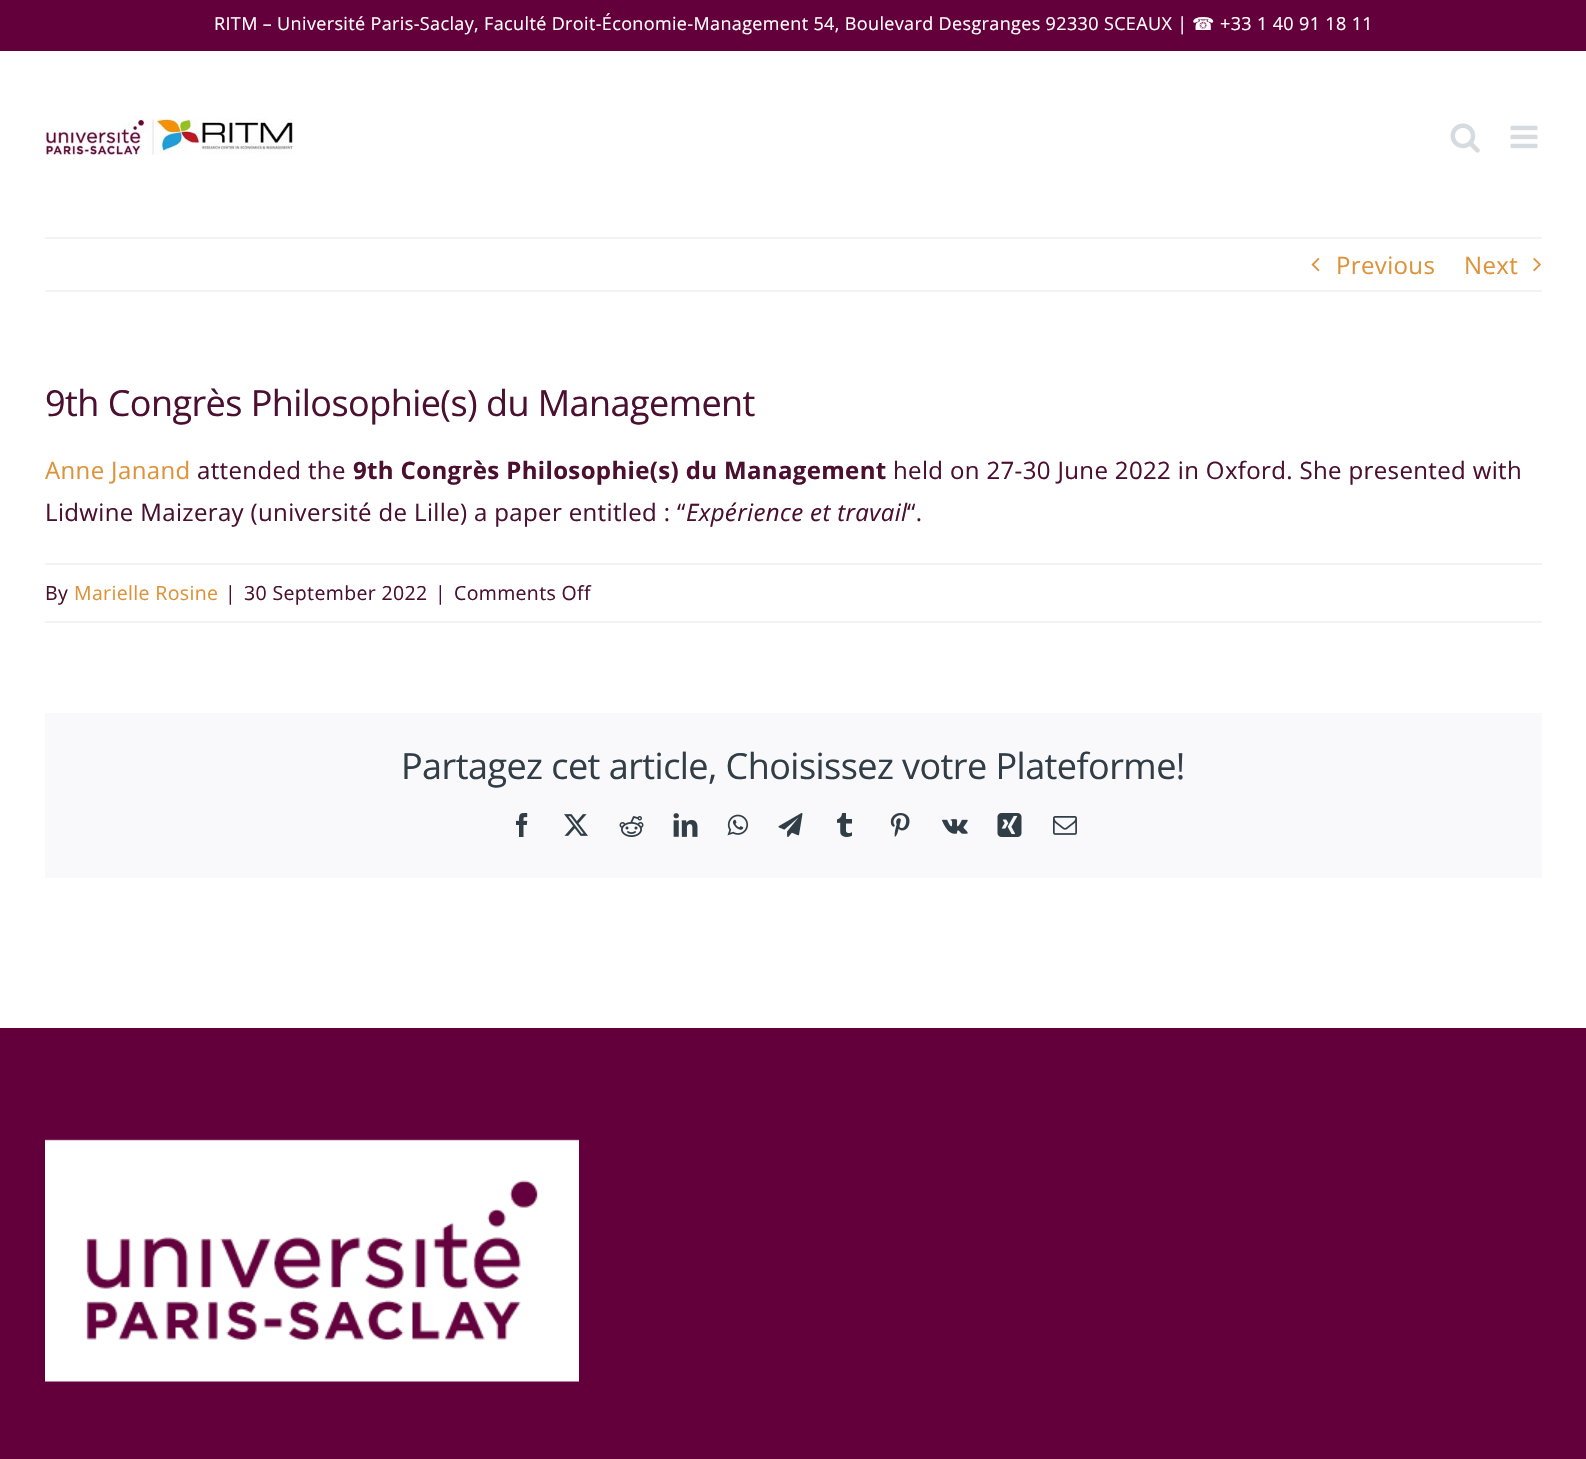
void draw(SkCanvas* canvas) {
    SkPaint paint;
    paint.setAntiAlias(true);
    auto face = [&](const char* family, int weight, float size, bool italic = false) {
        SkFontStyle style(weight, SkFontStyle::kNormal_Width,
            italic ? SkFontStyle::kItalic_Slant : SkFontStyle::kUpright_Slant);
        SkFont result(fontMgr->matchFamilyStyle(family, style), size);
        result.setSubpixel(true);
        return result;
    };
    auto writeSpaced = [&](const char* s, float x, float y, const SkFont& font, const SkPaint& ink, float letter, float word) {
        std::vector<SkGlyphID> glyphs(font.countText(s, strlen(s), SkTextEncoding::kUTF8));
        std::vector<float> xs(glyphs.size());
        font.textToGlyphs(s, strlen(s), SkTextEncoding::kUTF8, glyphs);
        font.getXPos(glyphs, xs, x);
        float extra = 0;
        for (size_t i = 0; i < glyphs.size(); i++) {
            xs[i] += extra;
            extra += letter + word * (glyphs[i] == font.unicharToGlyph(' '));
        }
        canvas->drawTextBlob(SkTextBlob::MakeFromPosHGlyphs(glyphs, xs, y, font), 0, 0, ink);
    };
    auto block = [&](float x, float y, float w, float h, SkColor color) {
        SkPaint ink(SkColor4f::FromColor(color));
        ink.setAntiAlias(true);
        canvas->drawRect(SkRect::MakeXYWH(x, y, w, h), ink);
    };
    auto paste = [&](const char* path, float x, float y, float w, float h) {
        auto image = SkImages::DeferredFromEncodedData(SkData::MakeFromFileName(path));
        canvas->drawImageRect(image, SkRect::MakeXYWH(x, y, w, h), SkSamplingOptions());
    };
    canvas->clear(SK_ColorWHITE);
    block(0, 0, 1586, 51, SkColorSetRGB(99, 0, 60));
    auto kFont1 = face("Open Sans", 400, 18);
    paint.setColor(SK_ColorWHITE);
    writeSpaced("RITM – Université Paris-Saclay, Faculté Droit-Économie-Management 54, Boulevard Desgranges 92330 SCEAUX |", 214, 30, kFont1, paint, 0.36f, 0);
    auto kFont2 = face("DejaVu Sans", 400, 18);
    writeSpaced("☎", 1192, 30, kFont2, paint, 0.36f, 0);
    writeSpaced("+33 1 40 91 18 11", 1220, 30, kFont1, paint, 0.36f, 0);
    paste("pic1.png", 45, 118, 248, 37);
    paste("pic2.png", 1450, 123, 30, 30);
    paste("pic3.png", 1510, 125, 28, 24);
    block(45, 237, 1497, 2, SkColorSetRGB(242, 243, 245));
    block(45, 290, 1497, 2, SkColorSetRGB(242, 243, 245));
    paste("pic4.png", 1311, 257, 9, 15);
    auto kFont3 = face("Open Sans", 400, 24);
    paint.setColor(SkColorSetRGB(222, 147, 58));
    writeSpaced("Previous", 1336, 274, kFont3, paint, 0.36f, 0);
    writeSpaced("Next", 1464, 274, kFont3, paint, 0.36f, 0);
    paste("pic5.png", 1533, 257, 8, 15);
    auto kFont4 = face("Open Sans", 400, 36);
    paint.setColor(SkColorSetRGB(75, 15, 48));
    writeSpaced("9th Congrès Philosophie(s) du Management", 45, 416, kFont4, paint, -0.55f, 0);
    paint.setColor(SkColorSetRGB(222, 147, 58));
    writeSpaced("Anne Janand", 45, 479, kFont3, paint, 0.36f, 0);
    paint.setColor(SkColorSetRGB(75, 15, 48));
    writeSpaced("attended the", 197, 479, kFont3, paint, 0.36f, 0);
    auto kFont5 = face("Open Sans", 700, 24);
    writeSpaced("9th Congrès Philosophie(s) du Management", 353, 479, kFont5, paint, 0.36f, 0);
    writeSpaced("held on 27-30 June 2022 in Oxford. She presented with", 893, 479, kFont3, paint, 0.36f, 0);
    writeSpaced("Lidwine Maizeray (université de Lille) a paper entitled : “", 45, 521, kFont3, paint, 0.36f, 0);
    auto kFont6 = face("Open Sans", 400, 24, true);
    writeSpaced("Expérience et travail", 686, 521, kFont6, paint, 0.36f, 0);
    writeSpaced("“.", 907, 521, kFont3, paint, 0.36f, 0);
    block(45, 563, 1497, 2, SkColorSetRGB(242, 243, 245));
    block(45, 621, 1497, 2, SkColorSetRGB(242, 243, 245));
    auto kFont7 = face("Open Sans", 400, 19.5f);
    writeSpaced("By", 45, 600, kFont7, paint, 0.36f, 0);
    paint.setColor(SkColorSetRGB(222, 147, 58));
    writeSpaced("Marielle Rosine", 74, 600, kFont7, paint, 0.36f, 0);
    paint.setColor(SkColorSetRGB(75, 15, 48));
    writeSpaced("|", 225, 600, kFont7, paint, 0.36f, 0);
    writeSpaced("30 September 2022", 244, 600, kFont7, paint, 0.36f, 0);
    writeSpaced("|", 435, 600, kFont7, paint, 0.36f, 0);
    writeSpaced("Comments Off", 454, 600, kFont7, paint, 0.36f, 0);
    block(45, 713, 1497, 165, SkColorSetRGB(249, 249, 251));
    paint.setColor(SkColorSetRGB(49, 62, 72));
    writeSpaced("Partagez cet article, Choisissez votre Plateforme!", 401, 779, kFont4, paint, -0.55f, 0);
    paste("pic6.png", 516, 813, 12, 24);
    paste("pic7.png", 564, 814, 24, 22);
    paste("pic8.png", 619, 816, 25, 21);
    paste("pic9.png", 673, 813, 25, 24);
    paste("pic10.png", 727, 814, 22, 22);
    paste("pic11.png", 778, 813, 25, 24);
    paste("pic12.png", 837, 813, 15, 24);
    paste("pic13.png", 890, 813, 20, 24);
    paste("pic14.png", 942, 819, 26, 15);
    paste("pic15.png", 997, 813, 25, 24);
    paste("pic16.png", 1053, 816, 24, 19);
    block(0, 1028, 1586, 431, SkColorSetRGB(99, 0, 60));
    paste("pic17.png", 45, 1139, 534, 243);
}
